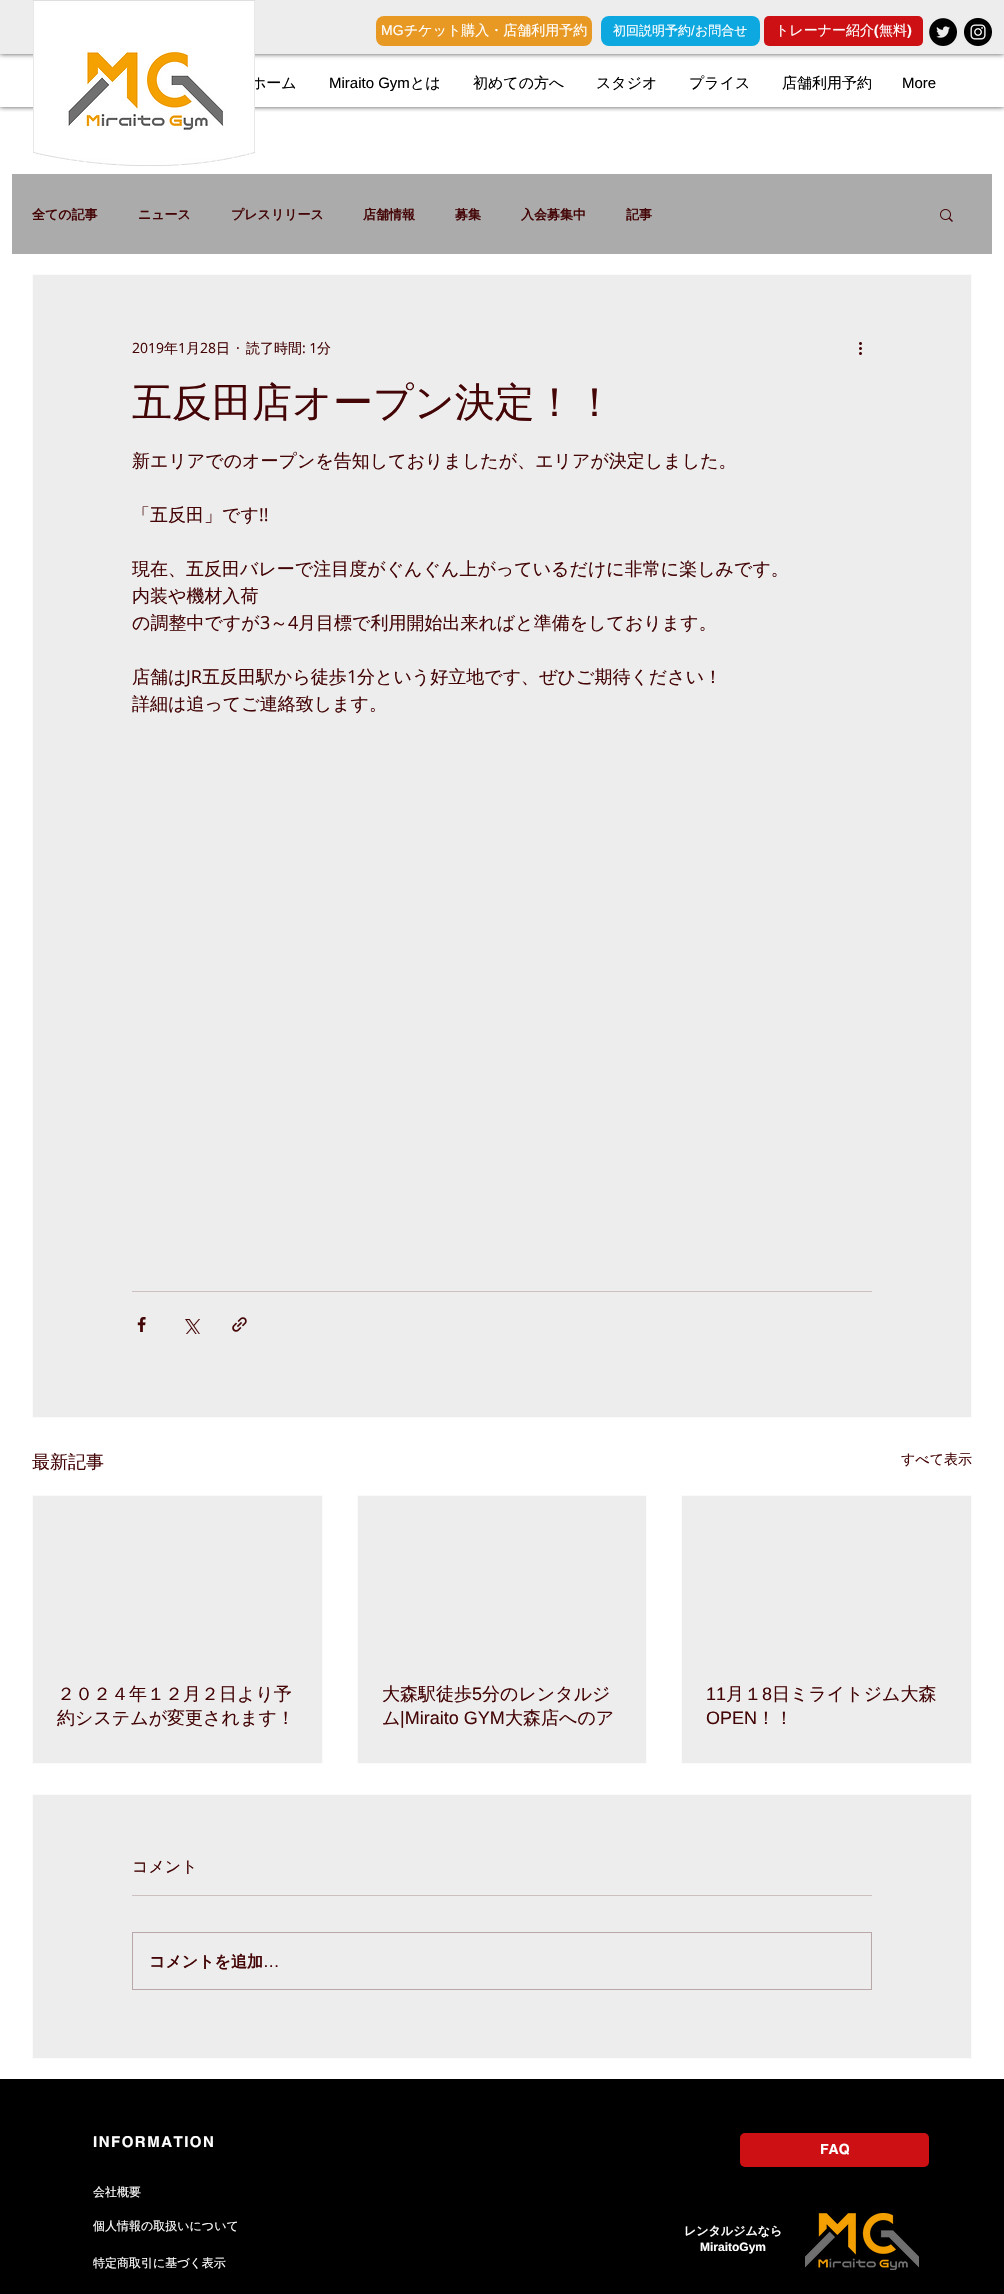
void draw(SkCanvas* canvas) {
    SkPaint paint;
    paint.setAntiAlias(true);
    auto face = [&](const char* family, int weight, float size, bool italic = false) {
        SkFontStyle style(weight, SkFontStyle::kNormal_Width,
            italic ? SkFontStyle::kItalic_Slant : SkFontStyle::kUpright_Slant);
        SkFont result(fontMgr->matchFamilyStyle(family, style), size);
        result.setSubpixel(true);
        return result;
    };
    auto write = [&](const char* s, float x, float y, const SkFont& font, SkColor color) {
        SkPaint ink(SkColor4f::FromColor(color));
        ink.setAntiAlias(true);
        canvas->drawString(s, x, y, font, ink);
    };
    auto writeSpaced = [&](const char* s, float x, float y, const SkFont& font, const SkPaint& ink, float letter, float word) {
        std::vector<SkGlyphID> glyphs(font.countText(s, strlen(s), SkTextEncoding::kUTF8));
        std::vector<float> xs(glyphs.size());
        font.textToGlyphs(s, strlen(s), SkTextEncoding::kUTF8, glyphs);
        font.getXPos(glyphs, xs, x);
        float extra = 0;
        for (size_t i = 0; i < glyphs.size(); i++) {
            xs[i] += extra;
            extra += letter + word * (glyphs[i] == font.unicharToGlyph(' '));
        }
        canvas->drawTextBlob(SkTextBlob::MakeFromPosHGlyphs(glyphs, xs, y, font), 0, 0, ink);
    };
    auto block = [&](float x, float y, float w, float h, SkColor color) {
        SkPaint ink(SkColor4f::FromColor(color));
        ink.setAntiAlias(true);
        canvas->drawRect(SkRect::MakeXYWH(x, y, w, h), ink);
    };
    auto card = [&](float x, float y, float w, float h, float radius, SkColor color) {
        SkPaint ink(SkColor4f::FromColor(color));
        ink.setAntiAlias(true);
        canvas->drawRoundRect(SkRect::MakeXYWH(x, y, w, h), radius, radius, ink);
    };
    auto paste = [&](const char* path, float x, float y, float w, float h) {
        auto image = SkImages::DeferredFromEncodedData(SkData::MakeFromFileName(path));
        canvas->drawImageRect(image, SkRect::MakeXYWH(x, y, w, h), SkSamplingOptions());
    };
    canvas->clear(SK_ColorWHITE);
    canvas->save();
    canvas->clipRect(SkRect::MakeXYWH(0, 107, 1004, 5));
    paint.setColor(SkColorSetARGB(179, 0, 0, 0));
    paint.setMaskFilter(SkMaskFilter::MakeBlur(kNormal_SkBlurStyle, 2.5f));
    canvas->drawRect(SkRect::MakeXYWH(0, 0, 1004, 107), paint);
    paint.setMaskFilter(nullptr);
    canvas->restore();
    paint.setMaskFilter(SkMaskFilter::MakeBlur(kNormal_SkBlurStyle, 2.5f));
    canvas->drawRect(SkRect::MakeXYWH(0, 0, 1004, 54), paint);
    paint.setMaskFilter(nullptr);
    block(0, 0, 1004, 54, SkColorSetRGB(237, 237, 237));
    auto kFont1 = face("WenQuanYi Zen Hei", 500, 15);
    write("ホーム", 251, 88, kFont1, SK_ColorBLACK);
    paste("pic1.png", 33, 0, 222, 166);
    card(376, 16, 216, 30, 8, SkColorSetRGB(232, 153, 36));
    auto kFont2 = face("Liberation Sans", 400, 14);
    write("MG", 381, 35, kFont2, SK_ColorWHITE);
    auto kFont3 = face("WenQuanYi Zen Hei", 500, 14);
    write("チケット購入・店舗利用予約", 404, 35, kFont3, SK_ColorWHITE);
    card(601, 16, 159, 30, 8, SkColorSetRGB(13, 168, 224));
    auto kFont4 = face("WenQuanYi Zen Hei", 500, 13);
    write("初回説明予約 お問合せ", 613, 35, kFont4, SK_ColorWHITE);
    auto kFont5 = face("Liberation Sans", 400, 13);
    write("/", 691, 35, kFont5, SK_ColorWHITE);
    card(764, 16, 159, 30, 5, SkColorSetRGB(204, 16, 19));
    write("トレーナー紹介", 775, 35, kFont3, SK_ColorWHITE);
    auto kFont6 = face("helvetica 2", 700, 14);
    write("(", 874, 35, kFont6, SK_ColorWHITE);
    write("無料", 879, 35, kFont3, SK_ColorWHITE);
    write(")", 907, 35, kFont6, SK_ColorWHITE);
    paste("pic2.png", 929, 18, 28, 28);
    paste("pic3.png", 964, 18, 28, 28);
    auto kFont7 = face("Liberation Sans", 400, 15);
    write("Miraito Gym", 329, 88, kFont7, SK_ColorBLACK);
    write("とは", 410, 88, kFont1, SK_ColorBLACK);
    write("初めての方へ", 473, 88, kFont1, SK_ColorBLACK);
    write("スタジオ", 596, 88, kFont1, SK_ColorBLACK);
    write("プライス", 689, 88, kFont1, SK_ColorBLACK);
    write("店舗利用予約", 782, 88, kFont1, SK_ColorBLACK);
    write("More", 902, 88, kFont7, SK_ColorBLACK);
    block(12, 174, 980, 80, SkColorSetRGB(171, 171, 171));
    auto kFont8 = face("WenQuanYi Zen Hei", 700, 13);
    write("全ての記事", 32, 219, kFont8, SkColorSetRGB(68, 5, 6));
    write("ニュース", 138, 219, kFont8, SkColorSetRGB(68, 5, 6));
    write("プレスリリース", 231, 219, kFont8, SkColorSetRGB(68, 5, 6));
    write("店舗情報", 363, 219, kFont8, SkColorSetRGB(68, 5, 6));
    write("募集", 455, 219, kFont8, SkColorSetRGB(68, 5, 6));
    write("入会募集中", 521, 219, kFont8, SkColorSetRGB(68, 5, 6));
    write("記事", 626, 219, kFont8, SkColorSetRGB(68, 5, 6));
    paste("pic4.png", 940, 209, 13, 13);
    paint.setColor(SkColorSetRGB(237, 237, 237));
    canvas->drawRect(SkRect::MakeXYWH(32.5f, 274.5f, 939, 1143), paint);
    paint.setStyle(SkPaint::kStroke_Style);
    paint.setStrokeWidth(1);
    paint.setColor(SkColorSetRGB(251, 251, 251));
    canvas->drawRect(SkRect::MakeXYWH(32.5f, 274.5f, 939, 1143), paint);
    auto kFont9 = face("Open Sans", 400, 14);
    write("2019", 132, 353, kFont9, SkColorSetRGB(68, 5, 6));
    write("年", 164, 353, kFont3, SkColorSetRGB(68, 5, 6));
    write("1", 178, 353, kFont9, SkColorSetRGB(68, 5, 6));
    write("月", 186, 353, kFont3, SkColorSetRGB(68, 5, 6));
    write("28", 200, 353, kFont9, SkColorSetRGB(68, 5, 6));
    write("日", 216, 353, kFont3, SkColorSetRGB(68, 5, 6));
    write("·", 236, 353, kFont9, SkColorSetRGB(68, 5, 6));
    write("読了時間", 246, 353, kFont3, SkColorSetRGB(68, 5, 6));
    write(": 1", 302, 353, kFont9, SkColorSetRGB(68, 5, 6));
    write("分", 317, 353, kFont3, SkColorSetRGB(68, 5, 6));
    paste("pic5.png", 859, 342, 3, 13);
    auto kFont10 = face("WenQuanYi Zen Hei", 500, 40);
    write("五反田店オープン決定！！", 132, 416, kFont10, SkColorSetRGB(68, 5, 6));
    auto kFont11 = face("WenQuanYi Zen Hei", 500, 18);
    write("新エリアでのオープンを告知しておりましたが、エリアが決定しました。", 132, 467, kFont11, SkColorSetRGB(68, 5, 6));
    write("「五反田」です", 132, 521, kFont11, SkColorSetRGB(68, 5, 6));
    auto kFont12 = face("Open Sans", 400, 18);
    write("!!", 259, 521, kFont12, SkColorSetRGB(68, 5, 6));
    write("現在、五反田バレーで注目度がぐんぐん上がっているだけに非常に楽しみです。", 132, 575, kFont11, SkColorSetRGB(68, 5, 6));
    write("内装や機材入荷", 132, 602, kFont11, SkColorSetRGB(68, 5, 6));
    write("の調整中ですが", 132, 629, kFont11, SkColorSetRGB(68, 5, 6));
    write("3", 260, 629, kFont12, SkColorSetRGB(68, 5, 6));
    write("～", 270, 629, kFont11, SkColorSetRGB(68, 5, 6));
    write("4", 288, 629, kFont12, SkColorSetRGB(68, 5, 6));
    write("月目標で利用開始出来ればと準備をしております。", 298, 629, kFont11, SkColorSetRGB(68, 5, 6));
    write("店舗は", 132, 683, kFont11, SkColorSetRGB(68, 5, 6));
    write("JR", 186, 683, kFont12, SkColorSetRGB(68, 5, 6));
    write("五反田駅から徒歩", 202, 683, kFont11, SkColorSetRGB(68, 5, 6));
    write("1", 347, 683, kFont12, SkColorSetRGB(68, 5, 6));
    write("分という好立地です、ぜひご期待ください！", 357, 683, kFont11, SkColorSetRGB(68, 5, 6));
    write("詳細は追ってご連絡致します。", 132, 710, kFont11, SkColorSetRGB(68, 5, 6));
    block(132, 1291, 740, 1, SkColorSetRGB(203, 191, 191));
    paste("pic6.png", 137, 1317, 9, 15);
    paste("pic7.png", 185, 1319, 15, 15);
    paste("pic8.png", 232, 1317, 15, 15);
    write("最新記事", 32, 1468, kFont11, SkColorSetRGB(68, 5, 6));
    write("すべて表示", 901, 1464, kFont3, SkColorSetRGB(68, 5, 6));
    paint.setStyle(SkPaint::kFill_Style);
    paint.setColor(SkColorSetRGB(237, 237, 237));
    canvas->drawRect(SkRect::MakeXYWH(32.5f, 1495.5f, 290, 268), paint);
    paint.setStyle(SkPaint::kStroke_Style);
    paint.setColor(SkColorSetRGB(251, 251, 251));
    canvas->drawRect(SkRect::MakeXYWH(32.5f, 1495.5f, 290, 268), paint);
    write("２０２４年１２月２日より予", 57, 1700, kFont11, SkColorSetRGB(68, 5, 6));
    write("約システムが変更されます！", 57, 1724, kFont11, SkColorSetRGB(68, 5, 6));
    paint.setStyle(SkPaint::kFill_Style);
    paint.setColor(SkColorSetRGB(237, 237, 237));
    canvas->drawRect(SkRect::MakeXYWH(357.5f, 1495.5f, 289, 268), paint);
    paint.setStyle(SkPaint::kStroke_Style);
    paint.setColor(SkColorSetRGB(251, 251, 251));
    canvas->drawRect(SkRect::MakeXYWH(357.5f, 1495.5f, 289, 268), paint);
    write("大森駅徒歩", 382, 1700, kFont11, SkColorSetRGB(68, 5, 6));
    auto kFont13 = face("Liberation Sans", 400, 18);
    write("5", 472, 1700, kFont13, SkColorSetRGB(68, 5, 6));
    write("分のレンタルジ", 482, 1700, kFont11, SkColorSetRGB(68, 5, 6));
    write("ム", 382, 1724, kFont11, SkColorSetRGB(68, 5, 6));
    write("|Miraito GYM", 400, 1724, kFont13, SkColorSetRGB(68, 5, 6));
    write("大森店へのア", 505, 1724, kFont11, SkColorSetRGB(68, 5, 6));
    paint.setStyle(SkPaint::kFill_Style);
    paint.setColor(SkColorSetRGB(237, 237, 237));
    canvas->drawRect(SkRect::MakeXYWH(681.5f, 1495.5f, 290, 268), paint);
    paint.setStyle(SkPaint::kStroke_Style);
    paint.setColor(SkColorSetRGB(251, 251, 251));
    canvas->drawRect(SkRect::MakeXYWH(681.5f, 1495.5f, 290, 268), paint);
    write("11", 706, 1700, kFont13, SkColorSetRGB(68, 5, 6));
    write("月１", 726, 1700, kFont11, SkColorSetRGB(68, 5, 6));
    write("8", 762, 1700, kFont13, SkColorSetRGB(68, 5, 6));
    write("日ミライトジム大森", 772, 1700, kFont11, SkColorSetRGB(68, 5, 6));
    write("OPEN", 706, 1724, kFont13, SkColorSetRGB(68, 5, 6));
    write("！！", 757, 1724, kFont11, SkColorSetRGB(68, 5, 6));
    paint.setStyle(SkPaint::kFill_Style);
    paint.setColor(SkColorSetRGB(237, 237, 237));
    canvas->drawRect(SkRect::MakeXYWH(32.5f, 1794.5f, 939, 264), paint);
    paint.setStyle(SkPaint::kStroke_Style);
    paint.setColor(SkColorSetRGB(251, 251, 251));
    canvas->drawRect(SkRect::MakeXYWH(32.5f, 1794.5f, 939, 264), paint);
    auto kFont14 = face("WenQuanYi Zen Hei", 500, 16);
    write("コメント", 132, 1872, kFont14, SkColorSetRGB(68, 5, 6));
    block(132, 1895, 740, 1, SkColorSetRGB(203, 191, 191));
    paint.setColor(SkColorSetRGB(186, 167, 168));
    canvas->drawRect(SkRect::MakeXYWH(132.5f, 1932.5f, 739, 57), paint);
    auto kFont15 = face("WenQuanYi Zen Hei", 700, 16);
    write("コメントを追加", 149, 1967, kFont15, SkColorSetRGB(68, 5, 6));
    auto kFont16 = face("helvetica", 700, 16);
    write("…", 263, 1967, kFont16, SkColorSetRGB(68, 5, 6));
    block(0, 2079, 1004, 215, SK_ColorBLACK);
    auto kFont17 = face("helvetica 2", 700, 15);
    paint.setStyle(SkPaint::kFill_Style);
    paint.setColor(SK_ColorWHITE);
    writeSpaced("INFORMATION", 93, 2147, kFont17, paint, 1.5f, 0);
    card(740, 2133, 189, 34, 5, SkColorSetRGB(204, 16, 19));
    write("FAQ", 820, 2154, kFont6, SK_ColorWHITE);
    auto kFont18 = face("WenQuanYi Zen Hei", 500, 12);
    write("会社概要", 93, 2196, kFont18, SK_ColorWHITE);
    write("個人情報の取扱いについて", 93, 2230, kFont18, SK_ColorWHITE);
    auto kFont19 = face("WenQuanYi Zen Hei", 700, 12);
    write("レンタルジムなら", 684, 2235, kFont19, SK_ColorWHITE);
    auto kFont20 = face("Liberation Sans", 700, 12);
    write("MiraitoGym", 700, 2251, kFont20, SK_ColorWHITE);
    paste("pic9.png", 805, 2213, 114, 57);
    write("特定商取引に基づく表示", 93, 2267, kFont18, SK_ColorWHITE);
}
